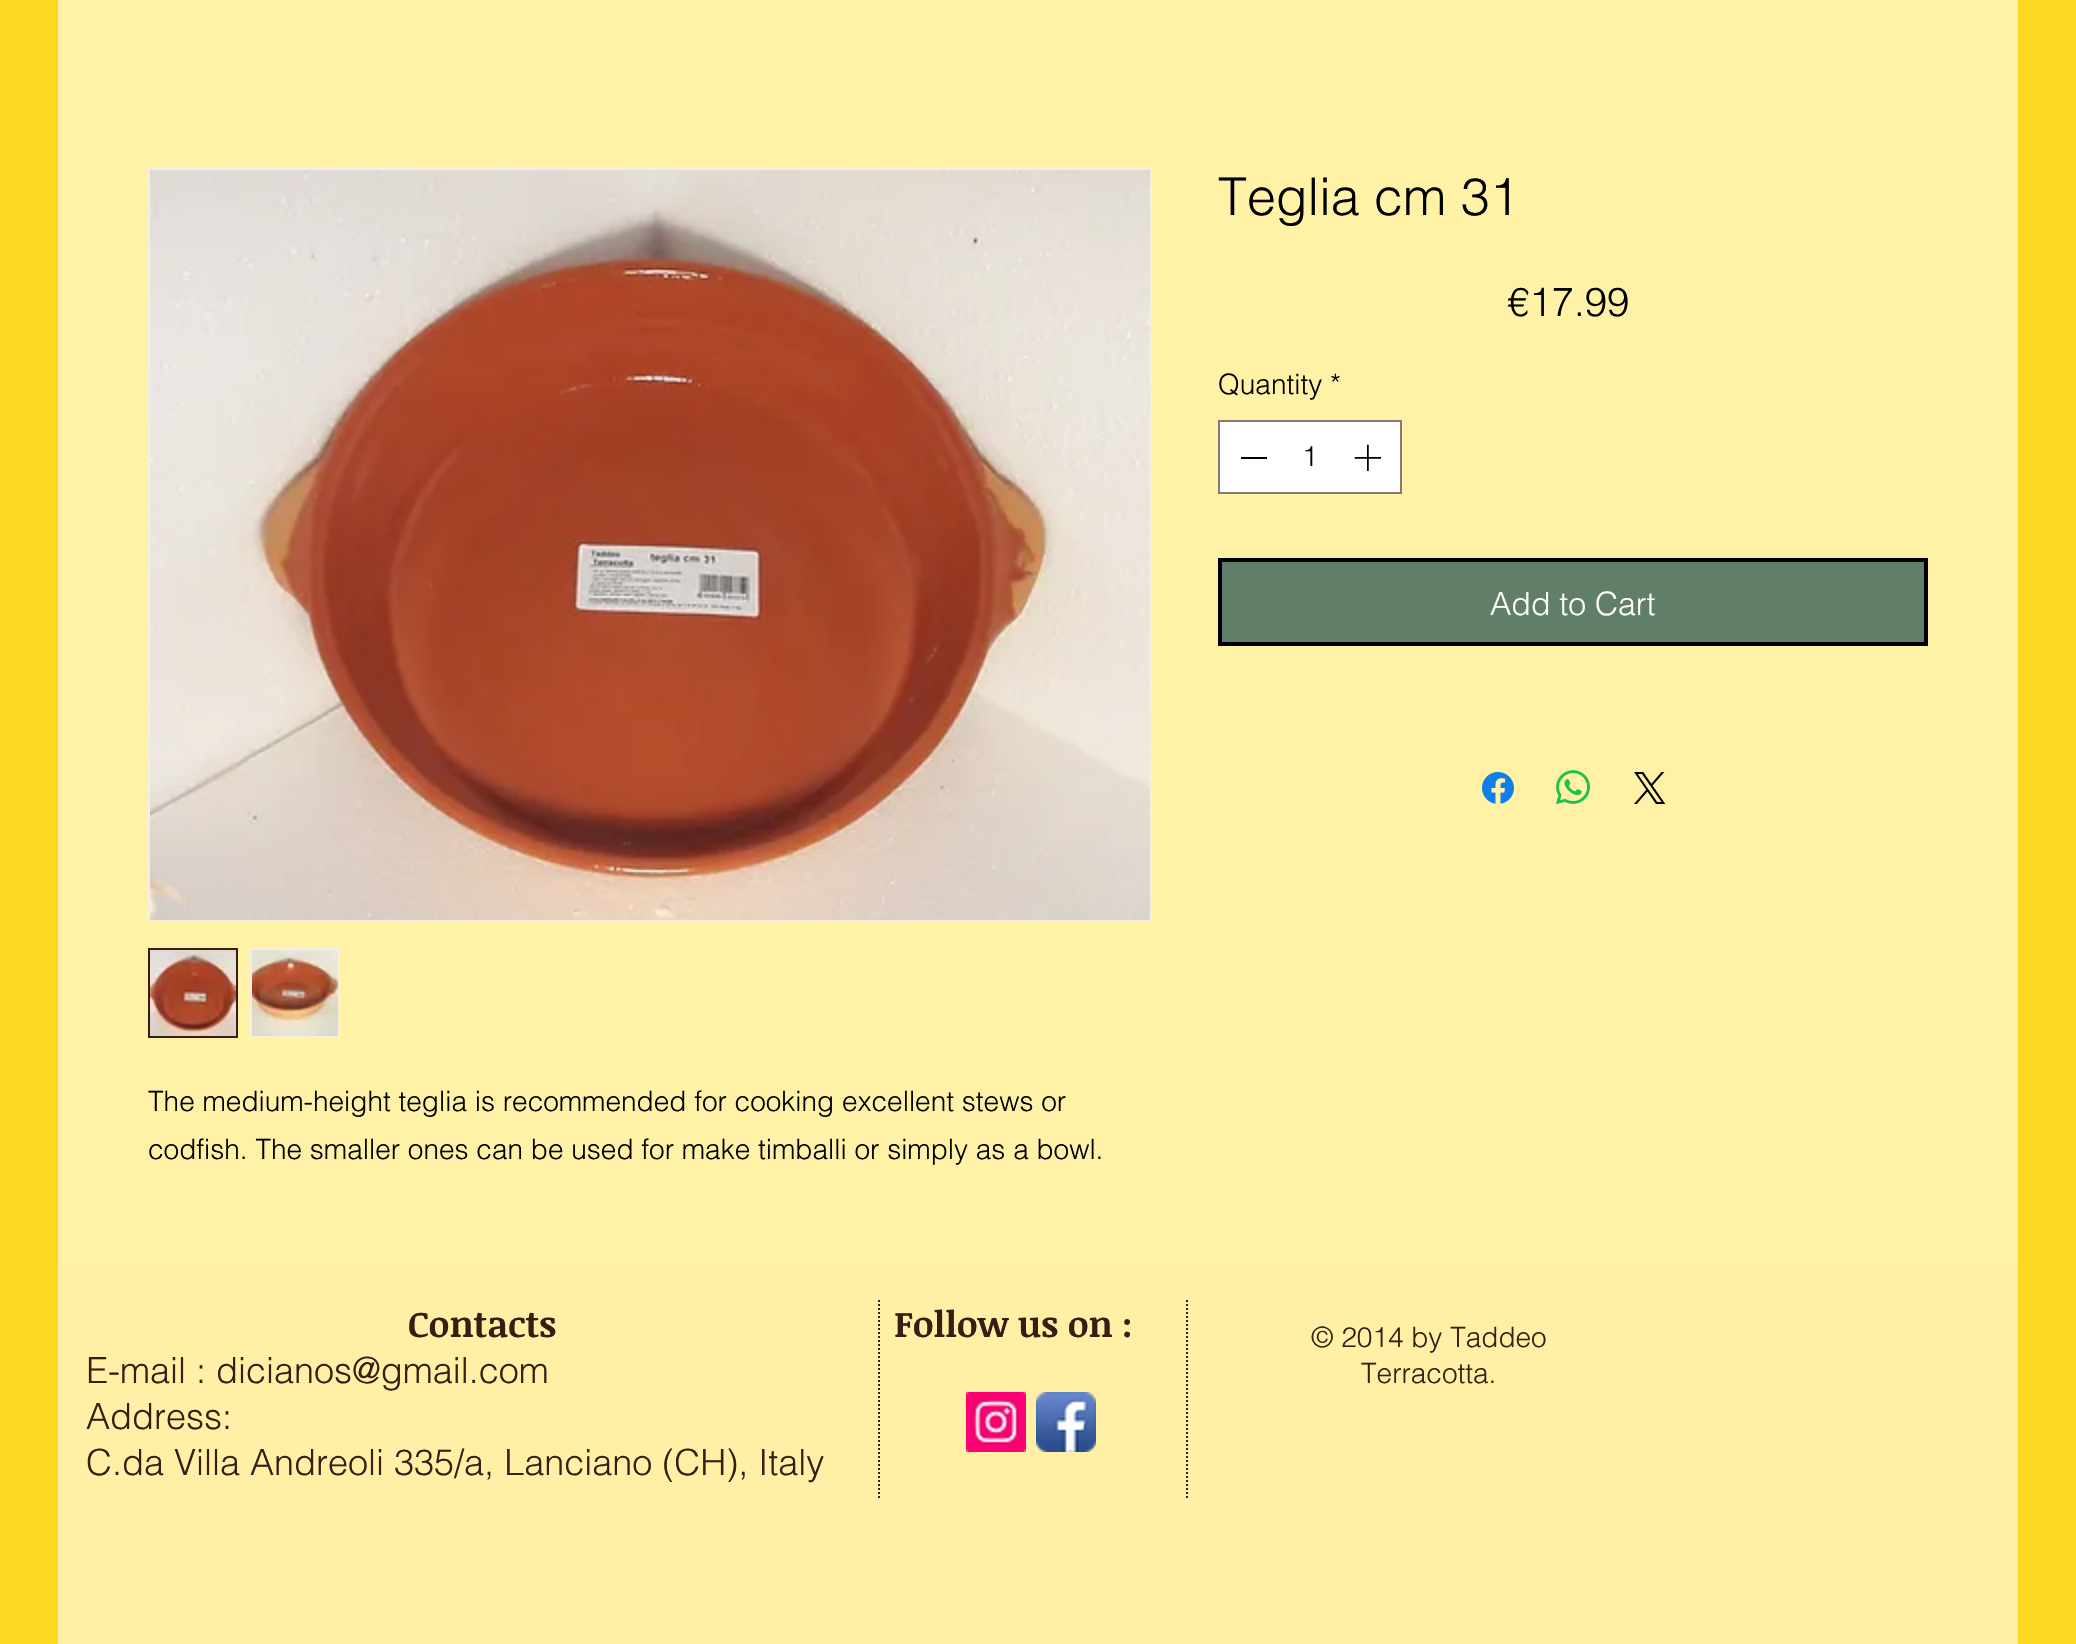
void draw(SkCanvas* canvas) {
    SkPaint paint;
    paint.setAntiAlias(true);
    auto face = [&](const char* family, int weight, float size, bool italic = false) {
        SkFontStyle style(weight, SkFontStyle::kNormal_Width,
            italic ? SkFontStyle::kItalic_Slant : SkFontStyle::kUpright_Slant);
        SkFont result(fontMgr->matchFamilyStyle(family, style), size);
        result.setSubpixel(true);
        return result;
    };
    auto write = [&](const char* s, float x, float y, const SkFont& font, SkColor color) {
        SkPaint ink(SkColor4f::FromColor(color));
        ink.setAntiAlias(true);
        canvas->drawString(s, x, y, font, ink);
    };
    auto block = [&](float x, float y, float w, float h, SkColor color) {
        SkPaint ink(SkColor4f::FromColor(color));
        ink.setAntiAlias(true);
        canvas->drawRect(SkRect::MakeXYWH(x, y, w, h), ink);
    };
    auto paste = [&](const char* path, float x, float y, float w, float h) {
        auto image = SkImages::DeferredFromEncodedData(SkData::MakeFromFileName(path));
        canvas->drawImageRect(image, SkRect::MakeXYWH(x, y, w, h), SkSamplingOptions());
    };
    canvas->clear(SkColorSetRGB(252, 217, 32));
    block(58, 0, 1960, 1264, SkColorSetRGB(255, 242, 166));
    auto kFont1 = face("helvetica", 300, 52);
    write("Teglia cm 31", 1218, 215, kFont1, SK_ColorBLACK);
    auto kFont2 = face("helvetica", 300, 40);
    write("€17.99", 1507, 316, kFont2, SK_ColorBLACK);
    auto kFont3 = face("helvetica", 300, 28);
    write("Quantity *", 1218, 394, kFont3, SK_ColorBLACK);
    paint.setColor(SK_ColorWHITE);
    canvas->drawRect(SkRect::MakeXYWH(1219, 421, 182, 72), paint);
    paint.setStyle(SkPaint::kStroke_Style);
    paint.setStrokeWidth(2);
    paint.setColor(SkColorSetRGB(137, 119, 113));
    canvas->drawRect(SkRect::MakeXYWH(1219, 421, 182, 72), paint);
    block(1241, 457, 26, 2, SK_ColorBLACK);
    write("1", 1302, 466, kFont3, SK_ColorBLACK);
    paste("pic1.png", 1354, 444, 27, 27);
    paint.setStyle(SkPaint::kFill_Style);
    paint.setColor(SkColorSetRGB(97, 126, 105));
    canvas->drawRect(SkRect::MakeXYWH(1220, 560, 706, 84), paint);
    paint.setStyle(SkPaint::kStroke_Style);
    paint.setStrokeWidth(4);
    paint.setColor(SK_ColorBLACK);
    canvas->drawRect(SkRect::MakeXYWH(1220, 560, 706, 84), paint);
    auto kFont4 = face("helvetica", 300, 32);
    write("Add to Cart", 1490, 615, kFont4, SK_ColorWHITE);
    paste("pic2.png", 1482, 772, 32, 32);
    paste("pic3.png", 1556, 770, 34, 35);
    paste("pic4.png", 1634, 772, 32, 32);
    paint.setStrokeWidth(2);
    paint.setColor(SkColorSetRGB(244, 239, 225));
    canvas->drawRect(SkRect::MakeXYWH(149, 169, 1002, 752), paint);
    paste("pic5.png", 150, 170, 1000, 750);
    paint.setColor(SkColorSetRGB(58, 28, 19));
    canvas->drawRect(SkRect::MakeXYWH(149, 949, 88, 88), paint);
    paste("pic6.png", 150, 950, 86, 86);
    paint.setColor(SkColorSetRGB(244, 239, 225));
    canvas->drawRect(SkRect::MakeXYWH(251, 949, 88, 88), paint);
    paste("pic7.png", 252, 950, 86, 86);
    write("The medium-height teglia is recommended for cooking excellent stews or", 148, 1111, kFont3, SK_ColorBLACK);
    write("codfish. The smaller ones can be used for make timballi or simply as a bowl.", 148, 1159, kFont3, SK_ColorBLACK);
    block(58, 1264, 1960, 380, SkColorSetRGB(255, 240, 166));
    auto kFont5 = face("Noticia Text", 700, 36);
    write("Contacts", 408, 1337, kFont5, SkColorSetRGB(58, 28, 19));
    auto kFont6 = face("helvetica", 300, 36);
    write("E-mail : dicianos@gmail.com", 86, 1383, kFont6, SkColorSetRGB(58, 28, 19));
    write("Address:", 86, 1429, kFont6, SkColorSetRGB(58, 28, 19));
    write("C.da Villa Andreoli 335/a, Lanciano (CH), Italy", 86, 1475, kFont6, SkColorSetRGB(58, 28, 19));
    paint.setColor(SkColorSetRGB(58, 28, 19));
    paint.setPathEffect(SkDashPathEffect::Make({{2, 2}}, 0));
    canvas->drawPath(SkPathBuilder().moveTo(879, 1300).lineTo(879, 1500).detach(), paint);
    paint.setPathEffect(nullptr);
    write("Follow us on :", 894, 1337, kFont5, SkColorSetRGB(58, 28, 19));
    paint.setPathEffect(SkDashPathEffect::Make({{2, 2}}, 0));
    canvas->drawPath(SkPathBuilder().moveTo(1187, 1300).lineTo(1187, 1500).detach(), paint);
    paint.setPathEffect(nullptr);
    write("© 2014 by Taddeo", 1311, 1347, kFont3, SkColorSetRGB(58, 28, 19));
    write("Terracotta.", 1361, 1383, kFont3, SkColorSetRGB(58, 28, 19));
    paste("pic8.png", 966, 1392, 60, 60);
    paste("pic9.png", 1036, 1392, 60, 60);
}
